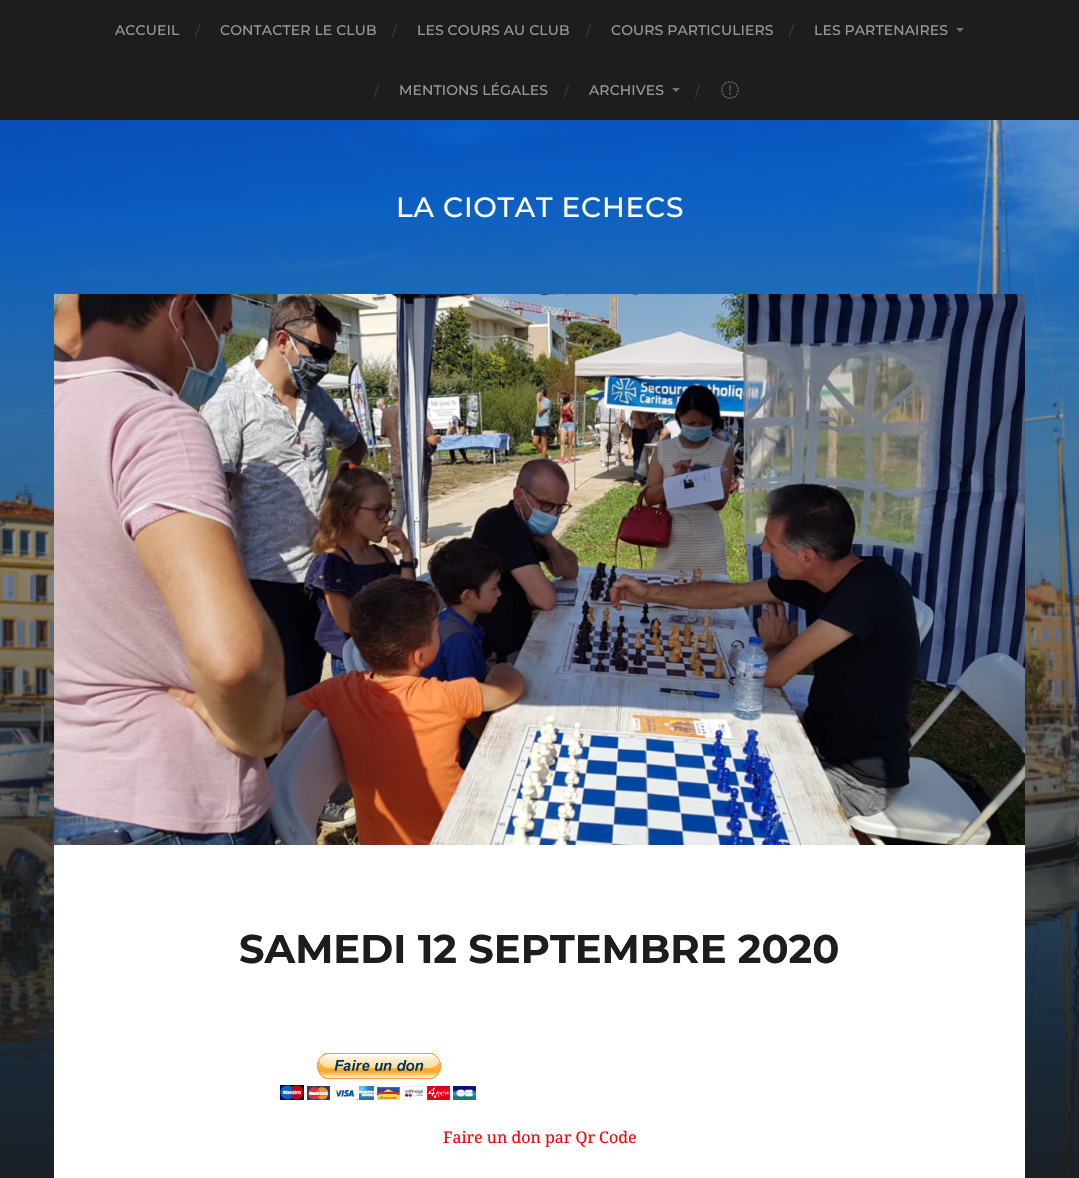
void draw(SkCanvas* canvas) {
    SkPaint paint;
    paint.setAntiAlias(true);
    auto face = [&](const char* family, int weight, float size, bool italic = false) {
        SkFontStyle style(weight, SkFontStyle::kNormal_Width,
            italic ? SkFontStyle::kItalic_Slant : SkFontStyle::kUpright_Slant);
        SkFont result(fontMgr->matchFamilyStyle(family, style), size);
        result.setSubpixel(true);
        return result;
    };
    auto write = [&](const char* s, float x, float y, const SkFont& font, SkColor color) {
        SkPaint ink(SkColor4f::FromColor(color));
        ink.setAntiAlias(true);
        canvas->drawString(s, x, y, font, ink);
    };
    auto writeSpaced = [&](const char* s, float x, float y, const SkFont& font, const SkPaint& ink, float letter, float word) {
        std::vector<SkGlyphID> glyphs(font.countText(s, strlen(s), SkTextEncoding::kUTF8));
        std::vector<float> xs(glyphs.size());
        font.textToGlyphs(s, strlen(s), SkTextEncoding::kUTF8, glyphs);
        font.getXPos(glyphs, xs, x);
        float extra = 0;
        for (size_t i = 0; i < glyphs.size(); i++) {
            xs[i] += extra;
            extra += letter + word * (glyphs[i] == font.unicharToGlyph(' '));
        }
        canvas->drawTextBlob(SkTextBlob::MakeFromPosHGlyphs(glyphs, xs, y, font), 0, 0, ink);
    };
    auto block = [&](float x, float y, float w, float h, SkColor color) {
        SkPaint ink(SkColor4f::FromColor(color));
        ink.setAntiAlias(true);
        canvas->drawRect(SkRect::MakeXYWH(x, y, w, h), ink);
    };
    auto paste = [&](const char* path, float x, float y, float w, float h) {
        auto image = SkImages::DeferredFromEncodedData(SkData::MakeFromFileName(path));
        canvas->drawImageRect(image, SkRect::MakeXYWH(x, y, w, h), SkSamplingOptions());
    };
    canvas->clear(SkColorSetRGB(29, 29, 29));
    auto kFont1 = face("Montserrat", 100, 14);
    paint.setColor(SkColorSetRGB(153, 153, 153));
    writeSpaced("ACCUEIL", 115, 35, kFont1, paint, 0.1f, 0);
    auto kFont2 = face("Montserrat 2", 100, 14);
    write("/", 195, 36, kFont2, SkColorSetRGB(61, 61, 61));
    writeSpaced("CONTACTER LE CLUB", 220, 35, kFont1, paint, 0.1f, 0);
    write("/", 392, 36, kFont2, SkColorSetRGB(61, 61, 61));
    writeSpaced("LES COURS AU CLUB", 417, 35, kFont1, paint, 0.1f, 0);
    write("/", 586, 36, kFont2, SkColorSetRGB(61, 61, 61));
    writeSpaced("COURS PARTICULIERS", 611, 35, kFont1, paint, 0.1f, 0);
    write("/", 789, 36, kFont2, SkColorSetRGB(61, 61, 61));
    writeSpaced("LES PARTENAIRES", 814, 35, kFont1, paint, 0.1f, 0);
    paint.setColor(SkColorSetRGB(117, 117, 117));
    canvas->drawPath(SkPathBuilder().moveTo(956, 28).lineTo(964, 28).lineTo(960, 32).close().detach(), paint);
    write("/", 374, 96, kFont2, SkColorSetRGB(61, 61, 61));
    paint.setColor(SkColorSetRGB(153, 153, 153));
    writeSpaced("MENTIONS LÉGALES", 399, 95, kFont1, paint, 0.1f, 0);
    write("/", 564, 96, kFont2, SkColorSetRGB(61, 61, 61));
    writeSpaced("ARCHIVES", 589, 95, kFont1, paint, 0.1f, 0);
    paint.setColor(SkColorSetRGB(117, 117, 117));
    canvas->drawPath(SkPathBuilder().moveTo(672, 88).lineTo(680, 88).lineTo(676, 92).close().detach(), paint);
    write("/", 695, 96, kFont2, SkColorSetRGB(61, 61, 61));
    paste("pic1.png", 721, 81, 18, 18);
    paste("pic2.png", 0, 120, 1079, 1058);
    auto kFont3 = face("Montserrat", 100, 28);
    paint.setColor(SK_ColorWHITE);
    writeSpaced("LA CIOTAT ECHECS", 396, 217, kFont3, paint, 0.75f, 0);
    block(54, 845, 971, 333, SK_ColorWHITE);
    paste("pic3.png", 54, 294, 971, 551);
    auto kFont4 = face("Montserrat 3", 100, 40);
    write("SAMEDI 12 SEPTEMBRE 2020", 239, 963, kFont4, SkColorSetRGB(29, 29, 29));
    paste("pic4.png", 280, 1053, 196, 47);
    auto kFont5 = face("Droid Serif", 400, 16);
    write("Faire un don par Qr Code", 443, 1143, kFont5, SkColorSetRGB(255, 0, 0));
}
